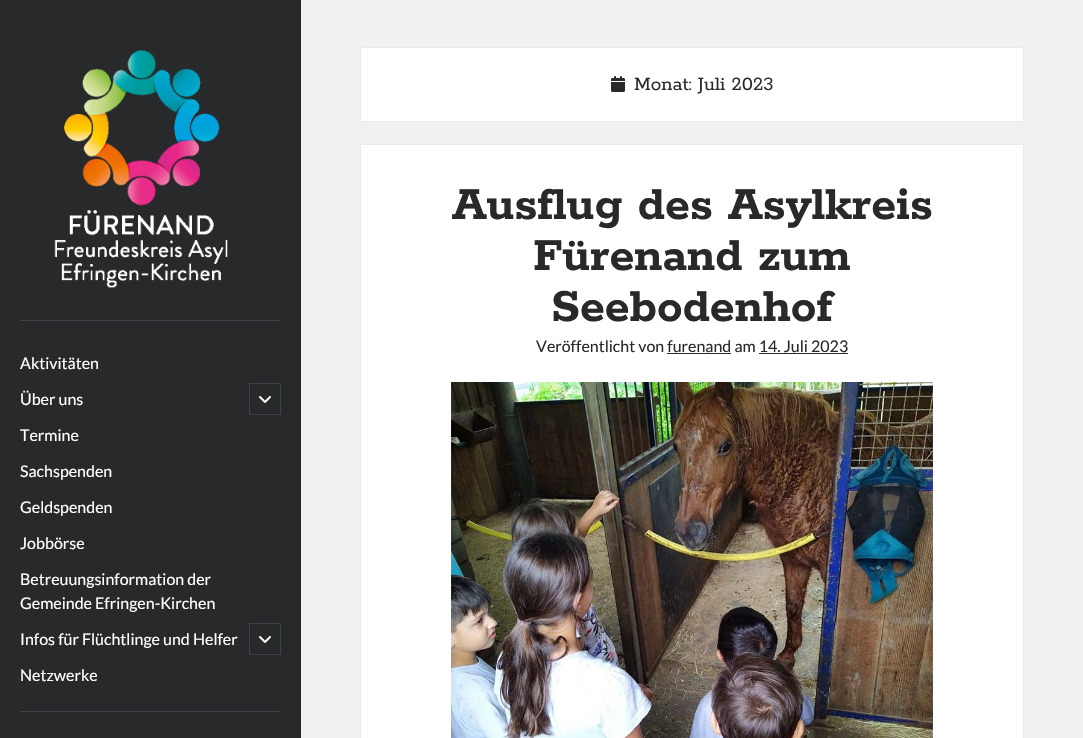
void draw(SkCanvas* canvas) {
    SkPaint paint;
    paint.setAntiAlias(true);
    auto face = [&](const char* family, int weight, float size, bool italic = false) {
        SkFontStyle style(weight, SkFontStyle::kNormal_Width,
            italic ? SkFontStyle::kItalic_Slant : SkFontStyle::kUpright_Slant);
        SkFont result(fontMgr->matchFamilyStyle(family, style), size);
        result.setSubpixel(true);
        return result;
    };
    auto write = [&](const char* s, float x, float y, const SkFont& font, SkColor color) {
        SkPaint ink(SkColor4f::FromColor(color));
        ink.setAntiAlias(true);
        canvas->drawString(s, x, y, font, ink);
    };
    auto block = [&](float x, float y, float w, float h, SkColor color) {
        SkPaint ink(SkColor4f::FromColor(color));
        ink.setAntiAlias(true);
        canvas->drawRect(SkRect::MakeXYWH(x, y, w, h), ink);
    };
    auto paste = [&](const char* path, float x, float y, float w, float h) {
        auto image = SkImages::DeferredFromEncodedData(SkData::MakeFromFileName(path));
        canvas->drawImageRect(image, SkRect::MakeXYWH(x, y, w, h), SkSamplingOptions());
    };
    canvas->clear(SkColorSetRGB(39, 41, 43));
    block(301, 0, 782, 738, SkColorSetRGB(240, 241, 242));
    paint.setColor(SkColorSetARGB(26, 39, 43, 47));
    paint.setMaskFilter(SkMaskFilter::MakeBlur(kNormal_SkBlurStyle, 1));
    canvas->drawRect(SkRect::MakeXYWH(361, 48, 662, 73), paint);
    paint.setMaskFilter(nullptr);
    block(361, 48, 662, 73, SK_ColorWHITE);
    paste("pic1.png", 611, 76, 14, 16);
    auto kFont1 = face("Rokkitt", 400, 21);
    write("Monat: Juli 2023", 634, 90, kFont1, SkColorSetRGB(39, 41, 43));
    paint.setMaskFilter(SkMaskFilter::MakeBlur(kNormal_SkBlurStyle, 1));
    canvas->drawRect(SkRect::MakeXYWH(361, 145, 662, 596), paint);
    paint.setMaskFilter(nullptr);
    block(361, 145, 662, 593, SK_ColorWHITE);
    auto kFont2 = face("Rokkitt", 700, 51);
    write("Ausflug des Asylkreis", 452, 219, kFont2, SkColorSetRGB(39, 41, 43));
    write("Fürenand zum", 533, 270, kFont2, SkColorSetRGB(39, 41, 43));
    write("Seebodenhof", 551, 321, kFont2, SkColorSetRGB(39, 41, 43));
    auto kFont3 = face("Lato", 400, 16);
    write("Veröffentlicht von furenand am 14. Juli 2023", 536, 352, kFont3, SkColorSetRGB(39, 41, 43));
    block(667, 353, 64, 1, SkColorSetRGB(39, 41, 43));
    block(759, 353, 89, 1, SkColorSetRGB(39, 41, 43));
    paste("pic2.png", 451, 382, 482, 356);
    paste("pic3.png", 54, 50, 174, 238);
    block(20, 320, 261, 1, SkColorSetRGB(62, 65, 69));
    write("Aktivitäten", 20, 369, kFont3, SK_ColorWHITE);
    write("Über uns", 20, 405, kFont3, SK_ColorWHITE);
    paint.setStyle(SkPaint::kStroke_Style);
    paint.setStrokeWidth(1);
    paint.setColor(SkColorSetRGB(62, 65, 69));
    canvas->drawRect(SkRect::MakeXYWH(249.5f, 383.5f, 31, 31), paint);
    paste("pic4.png", 259, 396, 12, 7);
    write("Termine", 20, 441, kFont3, SK_ColorWHITE);
    write("Sachspenden", 20, 477, kFont3, SK_ColorWHITE);
    write("Geldspenden", 20, 513, kFont3, SK_ColorWHITE);
    write("Jobbörse", 20, 549, kFont3, SK_ColorWHITE);
    write("Betreuungsinformation der", 20, 585, kFont3, SK_ColorWHITE);
    write("Gemeinde Efringen-Kirchen", 20, 609, kFont3, SK_ColorWHITE);
    write("Infos für Flüchtlinge und Helfer", 20, 645, kFont3, SK_ColorWHITE);
    canvas->drawRect(SkRect::MakeXYWH(249.5f, 623.5f, 31, 31), paint);
    paste("pic4.png", 259, 636, 12, 7);
    write("Netzwerke", 20, 681, kFont3, SK_ColorWHITE);
    block(20, 711, 261, 1, SkColorSetRGB(62, 65, 69));
}
